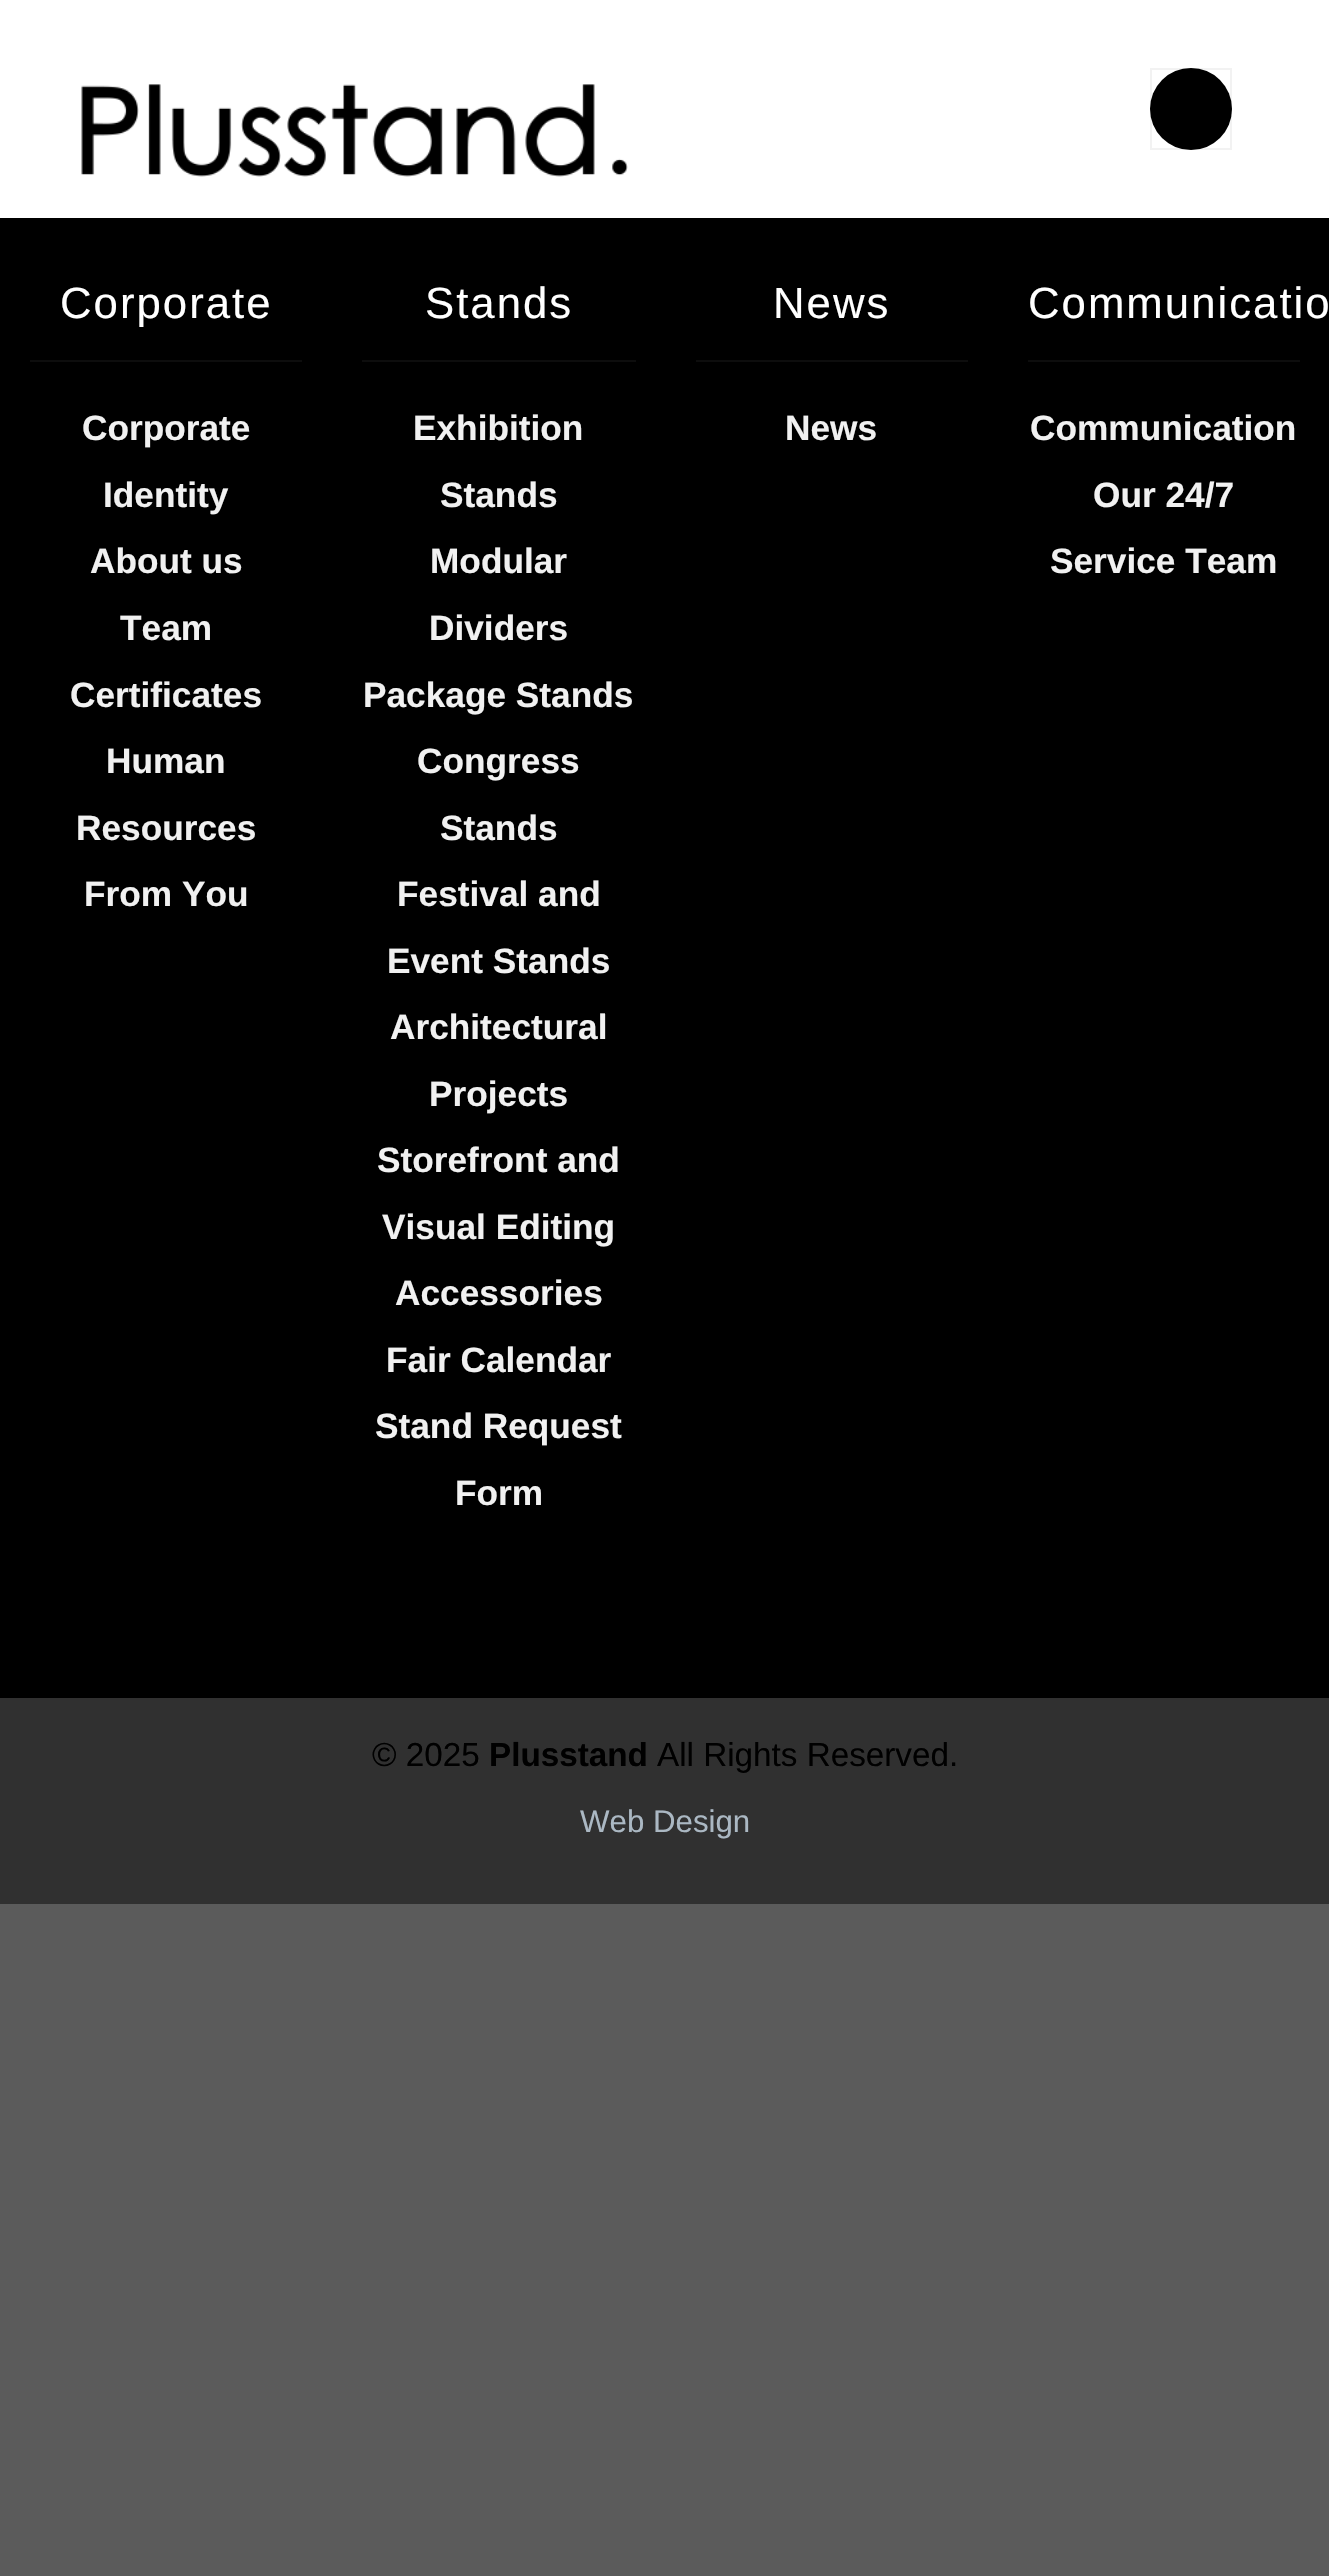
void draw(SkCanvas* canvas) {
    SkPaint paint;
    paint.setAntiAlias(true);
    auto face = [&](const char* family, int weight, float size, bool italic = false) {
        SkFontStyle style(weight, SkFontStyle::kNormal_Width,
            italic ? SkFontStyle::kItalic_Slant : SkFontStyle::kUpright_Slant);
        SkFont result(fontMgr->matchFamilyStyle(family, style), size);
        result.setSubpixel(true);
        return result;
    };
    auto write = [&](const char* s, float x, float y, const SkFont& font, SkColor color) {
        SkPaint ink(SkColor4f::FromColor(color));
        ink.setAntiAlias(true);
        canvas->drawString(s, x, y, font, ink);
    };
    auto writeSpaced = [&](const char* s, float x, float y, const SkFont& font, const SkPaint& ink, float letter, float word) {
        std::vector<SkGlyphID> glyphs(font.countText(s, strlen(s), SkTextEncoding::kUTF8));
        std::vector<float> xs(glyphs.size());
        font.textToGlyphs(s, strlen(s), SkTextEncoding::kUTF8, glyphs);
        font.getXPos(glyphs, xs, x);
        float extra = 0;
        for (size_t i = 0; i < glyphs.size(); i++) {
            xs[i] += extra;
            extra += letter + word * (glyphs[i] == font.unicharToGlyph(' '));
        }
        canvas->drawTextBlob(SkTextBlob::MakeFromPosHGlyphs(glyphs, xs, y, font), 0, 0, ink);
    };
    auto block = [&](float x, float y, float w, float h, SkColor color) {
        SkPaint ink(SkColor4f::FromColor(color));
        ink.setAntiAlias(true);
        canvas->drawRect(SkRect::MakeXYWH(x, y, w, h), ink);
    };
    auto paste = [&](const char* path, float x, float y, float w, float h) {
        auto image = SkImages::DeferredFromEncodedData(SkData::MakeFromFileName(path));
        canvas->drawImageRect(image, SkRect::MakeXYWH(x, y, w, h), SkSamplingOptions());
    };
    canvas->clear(SkColorSetRGB(91, 91, 91));
    block(0, 0, 1329, 218, SK_ColorWHITE);
    paste("pic1.png", 81, 84, 547, 93);
    paint.setColor(SK_ColorBLACK);
    canvas->drawCircle(1191, 109, 41, paint);
    paint.setStyle(SkPaint::kStroke_Style);
    paint.setStrokeWidth(2);
    paint.setColor(SkColorSetARGB(13, 0, 0, 0));
    canvas->drawRect(SkRect::MakeXYWH(1151, 69, 80, 80), paint);
    block(0, 218, 1329, 1480, SK_ColorBLACK);
    auto kFont1 = face("Liberation Sans", 400, 43.75f);
    paint.setStyle(SkPaint::kFill_Style);
    paint.setColor(SK_ColorWHITE);
    writeSpaced("Corporate", 60, 318, kFont1, paint, 2, 0);
    block(30, 360, 272, 2, SkColorSetRGB(13, 13, 13));
    auto kFont2 = face("Liberation Sans", 700, 35.25f);
    write("Corporate", 82, 440, kFont2, SkColorSetRGB(241, 241, 241));
    write("Identity", 103, 507, kFont2, SkColorSetRGB(241, 241, 241));
    write("About us", 90, 573, kFont2, SkColorSetRGB(241, 241, 241));
    write("Team", 120, 640, kFont2, SkColorSetRGB(241, 241, 241));
    write("Certificates", 70, 707, kFont2, SkColorSetRGB(241, 241, 241));
    write("Human", 106, 773, kFont2, SkColorSetRGB(241, 241, 241));
    write("Resources", 76, 840, kFont2, SkColorSetRGB(241, 241, 241));
    write("From You", 84, 906, kFont2, SkColorSetRGB(241, 241, 241));
    writeSpaced("Stands", 425, 318, kFont1, paint, 2, 0);
    block(362, 360, 274, 2, SkColorSetRGB(13, 13, 13));
    write("Exhibition", 413, 440, kFont2, SkColorSetRGB(241, 241, 241));
    write("Stands", 440, 507, kFont2, SkColorSetRGB(241, 241, 241));
    write("Modular", 430, 573, kFont2, SkColorSetRGB(241, 241, 241));
    write("Dividers", 429, 640, kFont2, SkColorSetRGB(241, 241, 241));
    write("Package Stands", 363, 707, kFont2, SkColorSetRGB(241, 241, 241));
    write("Congress", 417, 773, kFont2, SkColorSetRGB(241, 241, 241));
    write("Stands", 440, 840, kFont2, SkColorSetRGB(241, 241, 241));
    write("Festival and", 397, 906, kFont2, SkColorSetRGB(241, 241, 241));
    write("Event Stands", 387, 973, kFont2, SkColorSetRGB(241, 241, 241));
    write("Architectural", 390, 1039, kFont2, SkColorSetRGB(241, 241, 241));
    write("Projects", 429, 1106, kFont2, SkColorSetRGB(241, 241, 241));
    write("Storefront and", 377, 1172, kFont2, SkColorSetRGB(241, 241, 241));
    write("Visual Editing", 382, 1239, kFont2, SkColorSetRGB(241, 241, 241));
    write("Accessories", 395, 1305, kFont2, SkColorSetRGB(241, 241, 241));
    write("Fair Calendar", 386, 1372, kFont2, SkColorSetRGB(241, 241, 241));
    write("Stand Request", 375, 1438, kFont2, SkColorSetRGB(241, 241, 241));
    write("Form", 455, 1505, kFont2, SkColorSetRGB(241, 241, 241));
    writeSpaced("News", 773, 318, kFont1, paint, 2, 0);
    block(696, 360, 272, 2, SkColorSetRGB(13, 13, 13));
    write("News", 785, 440, kFont2, SkColorSetRGB(241, 241, 241));
    writeSpaced("Communicatio", 1028, 318, kFont1, paint, 2, 0);
    block(1028, 360, 272, 2, SkColorSetRGB(13, 13, 13));
    write("Communication", 1030, 440, kFont2, SkColorSetRGB(241, 241, 241));
    write("Our 24/7", 1093, 507, kFont2, SkColorSetRGB(241, 241, 241));
    write("Service Team", 1050, 573, kFont2, SkColorSetRGB(241, 241, 241));
    block(0, 1698, 1329, 206, SkColorSetRGB(48, 48, 48));
    auto kFont3 = face("Liberation Sans", 400, 33.25f);
    write("© 2025", 372, 1766, kFont3, SK_ColorBLACK);
    auto kFont4 = face("Liberation Sans", 700, 33.25f);
    write("Plusstand", 489, 1766, kFont4, SK_ColorBLACK);
    write("All Rights Reserved.", 657, 1766, kFont3, SK_ColorBLACK);
    auto kFont5 = face("Liberation Sans", 400, 31.25f);
    write("Web Design", 580, 1832, kFont5, SkColorSetRGB(171, 184, 195));
}
